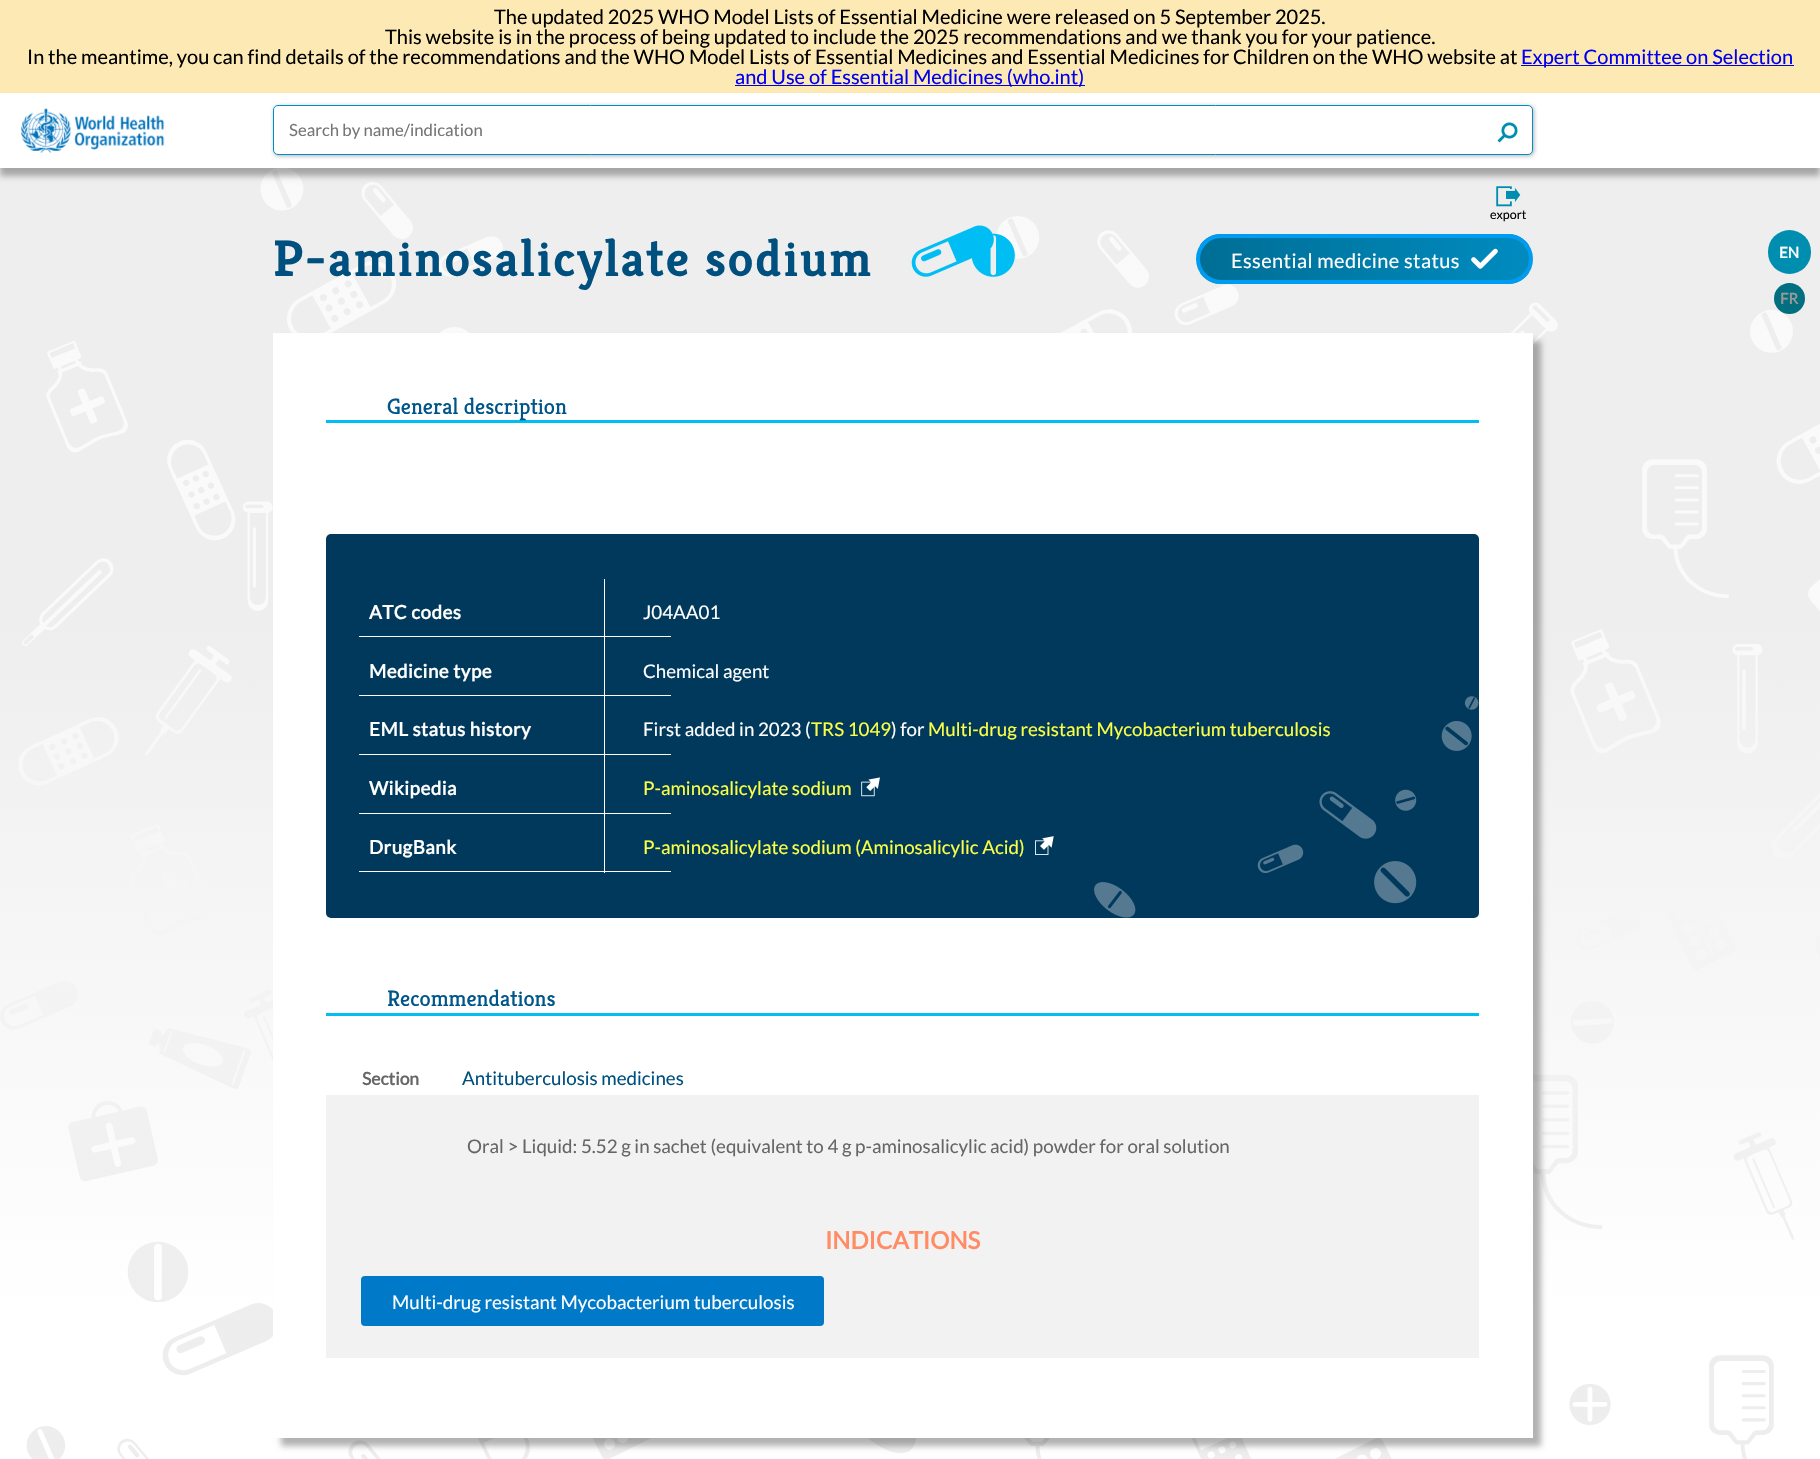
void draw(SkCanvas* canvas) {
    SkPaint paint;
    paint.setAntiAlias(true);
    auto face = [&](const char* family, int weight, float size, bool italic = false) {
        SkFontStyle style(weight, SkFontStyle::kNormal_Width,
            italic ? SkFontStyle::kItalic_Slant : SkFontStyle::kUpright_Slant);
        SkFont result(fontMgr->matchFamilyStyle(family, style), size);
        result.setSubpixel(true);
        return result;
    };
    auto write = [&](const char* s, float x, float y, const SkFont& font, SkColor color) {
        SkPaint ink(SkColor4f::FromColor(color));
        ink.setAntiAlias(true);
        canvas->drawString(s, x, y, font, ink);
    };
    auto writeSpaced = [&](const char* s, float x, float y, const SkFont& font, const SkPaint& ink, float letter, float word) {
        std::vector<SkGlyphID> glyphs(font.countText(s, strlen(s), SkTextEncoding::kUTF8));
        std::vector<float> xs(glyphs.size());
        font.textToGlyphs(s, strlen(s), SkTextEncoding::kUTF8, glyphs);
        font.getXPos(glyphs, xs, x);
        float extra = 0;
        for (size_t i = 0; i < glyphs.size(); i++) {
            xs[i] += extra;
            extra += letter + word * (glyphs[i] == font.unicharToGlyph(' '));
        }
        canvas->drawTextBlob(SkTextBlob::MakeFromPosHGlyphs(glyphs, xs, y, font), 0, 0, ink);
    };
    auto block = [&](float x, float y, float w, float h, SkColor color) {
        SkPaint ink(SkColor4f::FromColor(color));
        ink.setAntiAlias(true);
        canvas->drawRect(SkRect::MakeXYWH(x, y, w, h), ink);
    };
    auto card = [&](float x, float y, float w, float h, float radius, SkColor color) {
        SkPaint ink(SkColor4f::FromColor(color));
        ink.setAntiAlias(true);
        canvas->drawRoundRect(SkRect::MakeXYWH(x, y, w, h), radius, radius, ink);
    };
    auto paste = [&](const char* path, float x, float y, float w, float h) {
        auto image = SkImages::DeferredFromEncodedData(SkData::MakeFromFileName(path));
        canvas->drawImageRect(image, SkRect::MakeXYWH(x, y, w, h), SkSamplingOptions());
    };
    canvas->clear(SK_ColorWHITE);
    block(0, 0, 1820, 93, SkColorSetRGB(252, 233, 179));
    auto kFont1 = face("Lato", 400, 20);
    write("The updated 2025 WHO Model Lists of Essential Medicine were released on 5 September 2025.", 494, 24, kFont1, SK_ColorBLACK);
    write("This website is in the process of being updated to include the 2025 recommendations and we thank you for your patience.", 385, 44, kFont1, SK_ColorBLACK);
    write("In the meantime, you can find details of the recommendations and the WHO Model Lists of Essential Medicines and Essential Medicines for Children on the WHO website at", 27, 64, kFont1, SK_ColorBLACK);
    block(1521, 65, 273, 1, SkColorSetRGB(0, 0, 238));
    write("Expert Committee on Selection", 1521, 64, kFont1, SkColorSetRGB(0, 0, 238));
    block(735, 85, 350, 1, SkColorSetRGB(0, 0, 238));
    write("and Use of Essential Medicines (who.int)", 735, 84, kFont1, SkColorSetRGB(0, 0, 238));
    paste("pic3.png", 0, 168, 1820, 1291);
    canvas->save();
    canvas->clipPath(SkPathBuilder(SkPathFillType::kEvenOdd).moveTo(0, 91).lineTo(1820, 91).lineTo(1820, 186).lineTo(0, 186).close().moveTo(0, 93).lineTo(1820, 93).lineTo(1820, 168).lineTo(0, 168).close().detach(), true);
    paint.setColor(SkColorSetARGB(77, 0, 0, 0));
    paint.setMaskFilter(SkMaskFilter::MakeBlur(kNormal_SkBlurStyle, 3));
    canvas->drawRect(SkRect::MakeXYWH(0, 101, 1820, 75), paint);
    paint.setMaskFilter(nullptr);
    canvas->restore();
    paste("pic1.png", 21, 108, 144, 45);
    paint.setMaskFilter(SkMaskFilter::MakeBlur(kNormal_SkBlurStyle, 2));
    canvas->drawRoundRect(SkRect::MakeXYWH(274, 106, 1260, 50), 5, 5, paint);
    paint.setMaskFilter(nullptr);
    paint.setColor(SK_ColorWHITE);
    canvas->drawRoundRect(SkRect::MakeXYWH(273.5f, 105.5f, 1259, 49), 4.5f, 4.5f, paint);
    paint.setStyle(SkPaint::kStroke_Style);
    paint.setStrokeWidth(1);
    paint.setColor(SkColorSetRGB(0, 141, 201));
    canvas->drawRoundRect(SkRect::MakeXYWH(273.5f, 105.5f, 1259, 49), 4.5f, 4.5f, paint);
    auto kFont2 = face("Lato", 400, 16.75f);
    write("Search by name/indication", 289, 136, kFont2, SkColorSetRGB(117, 117, 117));
    paste("pic2.png", 1497, 122, 21, 21);
    paste("pic4.png", 1496, 186, 25, 21);
    auto kFont3 = face("Lato", 400, 12.5f);
    write("export", 1490, 219, kFont3, SK_ColorBLACK);
    auto kFont4 = face("Kreon", 700, 51.25f);
    paint.setStyle(SkPaint::kFill_Style);
    paint.setColor(SkColorSetRGB(0, 80, 127));
    writeSpaced("P-aminosalicylate sodium", 273, 276, kFont4, paint, 1.8f, 0);
    paste("pic5.png", 911, 225, 104, 52);
    canvas->save();
    canvas->clipPath(SkPathBuilder().moveTo(1221, 234).lineTo(1508, 234).cubicTo(1522, 234, 1533, 245, 1533, 259).cubicTo(1533, 273, 1522, 284, 1508, 284).lineTo(1221, 284).cubicTo(1207, 284, 1196, 273, 1196, 259).cubicTo(1196, 245, 1207, 234, 1221, 234).close().detach(), true);
    {
        const SkColor colors[] = {SkColorSetRGB(0, 110, 149), SkColorSetRGB(0, 139, 191)};
        const float stops[] = {0, 1};
        const SkPoint ends[] = {{1200, 259}, {1529, 259}};
        paint.setShader(SkGradientShader::MakeLinear(ends, colors, stops, 2, SkTileMode::kClamp));
        paint.setAlpha(255);
    }
    canvas->drawRect(SkRect::MakeXYWH(1200, 234, 329, 50), paint);
    canvas->restore();
    paint.setStyle(SkPaint::kStroke_Style);
    paint.setStrokeWidth(4);
    paint.setShader(nullptr);
    paint.setColor(SkColorSetRGB(0, 156, 241));
    canvas->drawRoundRect(SkRect::MakeXYWH(1198, 236, 333, 46), 23, 23, paint);
    paint.setStyle(SkPaint::kFill_Style);
    paint.setColor(SK_ColorWHITE);
    writeSpaced("Essential medicine status", 1231, 268, kFont1, paint, 0.4f, 0);
    paste("pic6.png", 1471, 248, 27, 21);
    card(1768, 230, 43, 44, 21.5f, SkColorSetRGB(0, 142, 176));
    auto kFont5 = face("Lato", 700, 15);
    write("EN", 1779, 258, kFont5, SK_ColorWHITE);
    paint.setColor(SkColorSetRGB(0, 111, 127));
    canvas->drawCircle(1789.5f, 298.5f, 15.5f, paint);
    write("FR", 1780, 304, kFont5, SkColorSetRGB(153, 153, 153));
    paint.setColor(SkColorSetARGB(77, 0, 0, 0));
    paint.setMaskFilter(SkMaskFilter::MakeBlur(kNormal_SkBlurStyle, 3));
    canvas->drawRect(SkRect::MakeXYWH(281, 341, 1260, 1105), paint);
    paint.setMaskFilter(nullptr);
    block(273, 333, 1260, 1105, SK_ColorWHITE);
    block(326, 420, 1153, 3, SkColorSetRGB(0, 190, 244));
    auto kFont6 = face("Kreon", 400, 22.5f);
    write("General description", 387, 414, kFont6, SkColorSetRGB(0, 86, 138));
    card(326, 534, 1153, 384, 5, SkColorSetRGB(0, 57, 92));
    paste("pic7.png", 1094, 696, 385, 222);
    block(359, 636, 312, 1, SK_ColorWHITE);
    block(604, 579, 1, 59, SK_ColorWHITE);
    auto kFont7 = face("Lato", 700, 18.75f);
    paint.setColor(SK_ColorWHITE);
    writeSpaced("ATC codes", 369, 619, kFont7, paint, 0.5f, 0);
    auto kFont8 = face("Lato", 400, 18.75f);
    write("J04AA01", 643, 619, kFont8, SK_ColorWHITE);
    block(359, 695, 312, 1, SK_ColorWHITE);
    block(604, 638, 1, 58, SK_ColorWHITE);
    writeSpaced("Medicine type", 369, 678, kFont7, paint, 0.5f, 0);
    write("Chemical agent", 643, 678, kFont8, SK_ColorWHITE);
    block(359, 754, 312, 1, SK_ColorWHITE);
    block(604, 696, 1, 59, SK_ColorWHITE);
    writeSpaced("EML status history", 369, 736, kFont7, paint, 0.5f, 0);
    write("First added in 2023 (", 643, 736, kFont8, SK_ColorWHITE);
    write("TRS 1049", 811, 736, kFont8, SkColorSetRGB(252, 255, 69));
    write(") for", 891, 736, kFont8, SK_ColorWHITE);
    write("Multi-drug resistant Mycobacterium tuberculosis", 928, 736, kFont8, SkColorSetRGB(252, 255, 69));
    block(359, 813, 312, 1, SK_ColorWHITE);
    block(604, 755, 1, 59, SK_ColorWHITE);
    writeSpaced("Wikipedia", 369, 795, kFont7, paint, 0.5f, 0);
    write("P-aminosalicylate sodium", 643, 795, kFont8, SkColorSetRGB(252, 255, 69));
    paste("pic8.png", 861, 777, 19, 20);
    block(359, 871, 312, 1, SK_ColorWHITE);
    block(604, 814, 1, 59, SK_ColorWHITE);
    writeSpaced("DrugBank", 369, 854, kFont7, paint, 0.5f, 0);
    write("P-aminosalicylate sodium (Aminosalicylic Acid)", 643, 854, kFont8, SkColorSetRGB(252, 255, 69));
    paste("pic9.png", 1035, 836, 19, 19);
    block(326, 1013, 1153, 3, SkColorSetRGB(0, 190, 244));
    write("Recommendations", 387, 1006, kFont6, SkColorSetRGB(0, 86, 138));
    block(326, 1095, 1153, 263, SkColorSetRGB(242, 242, 242));
    auto kFont9 = face("Lato", 700, 17.5f);
    write("Section", 362, 1085, kFont9, SkColorSetRGB(102, 102, 102));
    write("Antituberculosis medicines", 462, 1085, kFont8, SkColorSetRGB(0, 80, 127));
    write("Oral > Liquid: 5.52 g in sachet (equivalent to 4 g p-aminosalicylic acid) powder for oral solution", 467, 1153, kFont8, SkColorSetRGB(102, 102, 102));
    auto kFont10 = face("Lato", 700, 24);
    write("INDICATIONS", 825, 1249, kFont10, SkColorSetRGB(255, 140, 101));
    card(361, 1276, 463, 50, 4, SkColorSetRGB(0, 121, 200));
    write("Multi-drug resistant Mycobacterium tuberculosis", 392, 1309, kFont8, SK_ColorWHITE);
}
